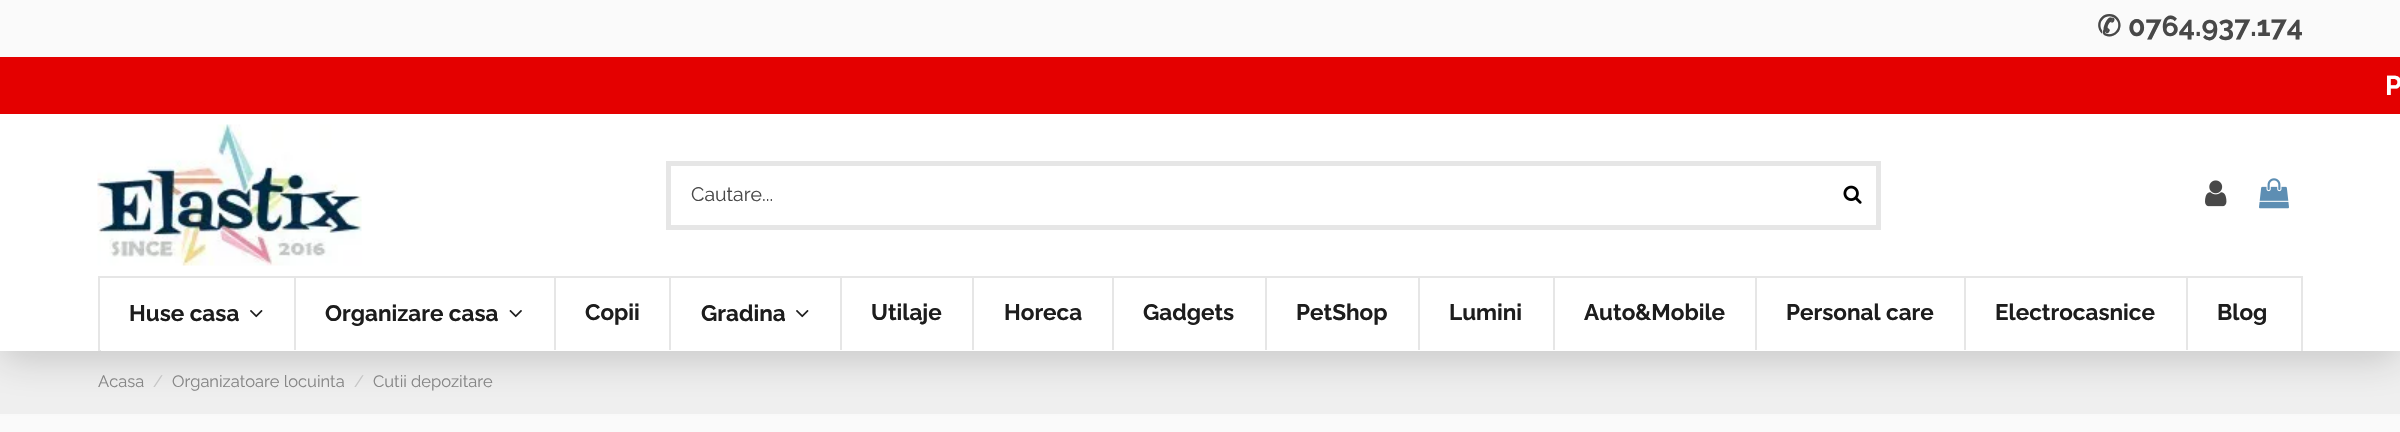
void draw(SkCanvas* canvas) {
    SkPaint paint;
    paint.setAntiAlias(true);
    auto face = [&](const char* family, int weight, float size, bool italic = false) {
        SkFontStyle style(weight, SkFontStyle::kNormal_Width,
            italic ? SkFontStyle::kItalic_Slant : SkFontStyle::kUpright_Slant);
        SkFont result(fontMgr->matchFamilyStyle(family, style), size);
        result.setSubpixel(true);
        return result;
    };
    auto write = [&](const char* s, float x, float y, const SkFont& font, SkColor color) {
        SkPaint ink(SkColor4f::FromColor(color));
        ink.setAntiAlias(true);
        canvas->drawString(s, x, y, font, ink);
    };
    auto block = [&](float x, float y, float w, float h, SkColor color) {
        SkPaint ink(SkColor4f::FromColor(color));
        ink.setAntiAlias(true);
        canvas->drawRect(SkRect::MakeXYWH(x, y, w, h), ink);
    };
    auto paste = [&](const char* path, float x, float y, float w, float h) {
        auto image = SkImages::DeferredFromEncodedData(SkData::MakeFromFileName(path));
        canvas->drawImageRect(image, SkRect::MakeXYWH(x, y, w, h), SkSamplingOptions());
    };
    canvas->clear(SkColorSetRGB(250, 250, 250));
    block(0, 351, 2400, 63, SkColorSetRGB(240, 240, 240));
    paint.setColor(SkColorSetARGB(46, 0, 0, 0));
    paint.setMaskFilter(SkMaskFilter::MakeBlur(kNormal_SkBlurStyle, 19));
    canvas->drawRect(SkRect::MakeXYWH(0, 8, 2400, 351), paint);
    paint.setMaskFilter(nullptr);
    block(0, 114, 2400, 237, SK_ColorWHITE);
    block(0, 0, 2400, 57, SkColorSetRGB(250, 250, 250));
    auto kFont1 = face("DejaVu Sans", 700, 28.5f);
    write("✆", 2097, 36, kFont1, SkColorSetRGB(72, 72, 72));
    auto kFont2 = face("Raleway", 700, 28.5f);
    write("0764.937.174", 2128, 36, kFont2, SkColorSetRGB(72, 72, 72));
    block(0, 57, 2400, 57, SkColorSetRGB(228, 0, 0));
    auto kFont3 = face("Raleway", 700, 27);
    write("P", 2385, 95, kFont3, SK_ColorWHITE);
    paste("pic1.png", 97, 124, 265, 142);
    paint.setStyle(SkPaint::kStroke_Style);
    paint.setStrokeWidth(5);
    paint.setColor(SkColorSetRGB(230, 230, 230));
    canvas->drawRect(SkRect::MakeXYWH(668.5f, 163.5f, 1210, 64), paint);
    auto kFont4 = face("Raleway", 400, 19.5f);
    write("Cautare...", 691, 201, kFont4, SkColorSetRGB(72, 72, 72));
    paste("pic2.png", 1843, 185, 19, 19);
    paste("pic3.png", 2205, 180, 22, 27);
    paste("pic4.png", 2259, 178, 30, 31);
    auto kFont5 = face("Raleway", 400, 16.5f);
    write("Acasa", 98, 387, kFont5, SkColorSetRGB(133, 133, 133));
    canvas->save();
    canvas->clipRect(SkRect::MakeXYWH(98, 276, 2205, 75));
    paint.setStrokeWidth(2);
    canvas->drawRect(SkRect::MakeXYWH(99, 277, 2203, 145), paint);
    canvas->restore();
    auto kFont6 = face("Raleway", 700, 22.5f);
    write("Huse casa", 129, 321, kFont6, SkColorSetRGB(29, 29, 29));
    paste("pic5.png", 250, 310, 13, 8);
    block(294, 278, 2, 72, SkColorSetRGB(230, 230, 230));
    write("Organizare casa", 325, 321, kFont6, SkColorSetRGB(29, 29, 29));
    paste("pic6.png", 509, 310, 13, 8);
    block(554, 278, 2, 72, SkColorSetRGB(230, 230, 230));
    write("Copii", 585, 320, kFont6, SkColorSetRGB(29, 29, 29));
    block(669, 278, 2, 72, SkColorSetRGB(230, 230, 230));
    write("Gradina", 701, 321, kFont6, SkColorSetRGB(29, 29, 29));
    paste("pic5.png", 796, 310, 13, 8);
    block(840, 278, 2, 72, SkColorSetRGB(230, 230, 230));
    write("Utilaje", 871, 320, kFont6, SkColorSetRGB(29, 29, 29));
    block(972, 278, 2, 72, SkColorSetRGB(230, 230, 230));
    write("Horeca", 1004, 320, kFont6, SkColorSetRGB(29, 29, 29));
    block(1112, 278, 2, 72, SkColorSetRGB(230, 230, 230));
    write("Gadgets", 1143, 320, kFont6, SkColorSetRGB(29, 29, 29));
    block(1265, 278, 2, 72, SkColorSetRGB(230, 230, 230));
    write("PetShop", 1296, 320, kFont6, SkColorSetRGB(29, 29, 29));
    block(1418, 278, 2, 72, SkColorSetRGB(230, 230, 230));
    write("Lumini", 1449, 320, kFont6, SkColorSetRGB(29, 29, 29));
    block(1553, 278, 2, 72, SkColorSetRGB(230, 230, 230));
    write("Auto&Mobile", 1584, 320, kFont6, SkColorSetRGB(29, 29, 29));
    block(1755, 278, 2, 72, SkColorSetRGB(230, 230, 230));
    write("Personal care", 1786, 320, kFont6, SkColorSetRGB(29, 29, 29));
    block(1964, 278, 2, 72, SkColorSetRGB(230, 230, 230));
    write("Electrocasnice", 1995, 320, kFont6, SkColorSetRGB(29, 29, 29));
    block(2186, 278, 2, 72, SkColorSetRGB(230, 230, 230));
    write("Blog", 2217, 320, kFont6, SkColorSetRGB(29, 29, 29));
    block(99, 350, 2, 1, SkColorSetRGB(230, 230, 230));
    write("/", 153, 387, kFont5, SkColorSetRGB(197, 197, 197));
    write("Organizatoare locuinta", 172, 387, kFont5, SkColorSetRGB(133, 133, 133));
    write("/", 354, 387, kFont5, SkColorSetRGB(197, 197, 197));
    write("Cutii depozitare", 373, 387, kFont5, SkColorSetRGB(133, 133, 133));
}
